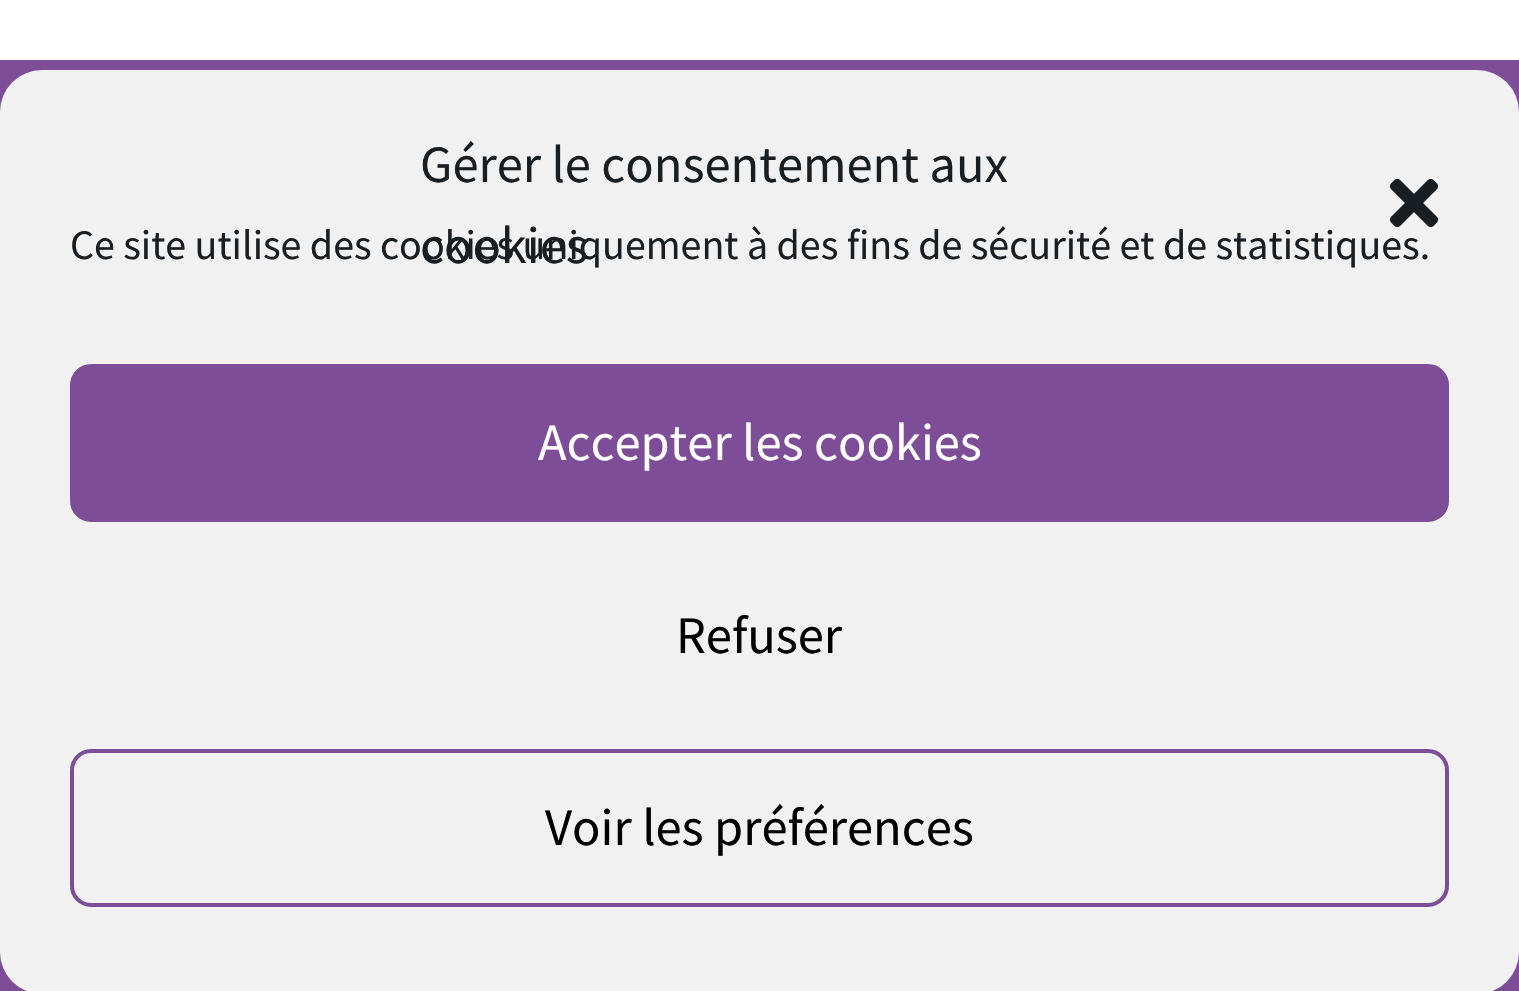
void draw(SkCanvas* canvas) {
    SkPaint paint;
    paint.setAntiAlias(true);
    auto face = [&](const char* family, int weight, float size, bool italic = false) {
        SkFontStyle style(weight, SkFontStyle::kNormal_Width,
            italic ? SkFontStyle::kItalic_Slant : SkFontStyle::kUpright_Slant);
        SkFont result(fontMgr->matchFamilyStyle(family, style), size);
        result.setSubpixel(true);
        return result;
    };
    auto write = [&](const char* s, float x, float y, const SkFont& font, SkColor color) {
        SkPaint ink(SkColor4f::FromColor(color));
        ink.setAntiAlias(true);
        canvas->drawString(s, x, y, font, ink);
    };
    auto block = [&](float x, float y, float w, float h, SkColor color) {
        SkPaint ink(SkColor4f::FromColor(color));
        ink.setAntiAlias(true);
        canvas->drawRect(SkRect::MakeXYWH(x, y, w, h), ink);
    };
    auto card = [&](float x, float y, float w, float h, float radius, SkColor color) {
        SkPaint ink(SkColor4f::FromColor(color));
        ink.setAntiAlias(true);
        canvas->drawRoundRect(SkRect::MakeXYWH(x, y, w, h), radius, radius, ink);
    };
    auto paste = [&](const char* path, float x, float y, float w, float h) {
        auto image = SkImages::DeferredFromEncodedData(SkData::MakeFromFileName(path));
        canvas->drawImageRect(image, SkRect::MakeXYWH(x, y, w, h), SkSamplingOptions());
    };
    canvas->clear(SK_ColorWHITE);
    block(0, 60, 1519, 931, SkColorSetRGB(125, 77, 152));
    card(0, 70, 1519, 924, 42, SkColorSetRGB(241, 241, 241));
    auto kFont1 = face("Source Sans Pro", 400, 52.5f);
    write("Gérer le consentement aux", 420, 182, kFont1, SkColorSetRGB(25, 30, 35));
    write("cookies", 420, 263, kFont1, SkColorSetRGB(25, 30, 35));
    paste("pic1.png", 1389, 178, 50, 50);
    auto kFont2 = face("Source Sans Pro", 400, 42);
    write("Ce site utilise des cookies uniquement à des fins de sécurité et de statistiques.", 70, 259, kFont2, SkColorSetRGB(25, 30, 35));
    paint.setColor(SkColorSetRGB(125, 77, 152));
    canvas->drawRoundRect(SkRect::MakeXYWH(72, 366, 1375, 154), 19, 19, paint);
    paint.setStyle(SkPaint::kStroke_Style);
    paint.setStrokeWidth(4);
    canvas->drawRoundRect(SkRect::MakeXYWH(72, 366, 1375, 154), 19, 19, paint);
    write("Accepter les cookies", 538, 460, kFont1, SK_ColorWHITE);
    write("Refuser", 676, 653, kFont1, SK_ColorBLACK);
    canvas->drawRoundRect(SkRect::MakeXYWH(72, 751, 1375, 154), 19, 19, paint);
    write("Voir les préférences", 545, 845, kFont1, SK_ColorBLACK);
}
